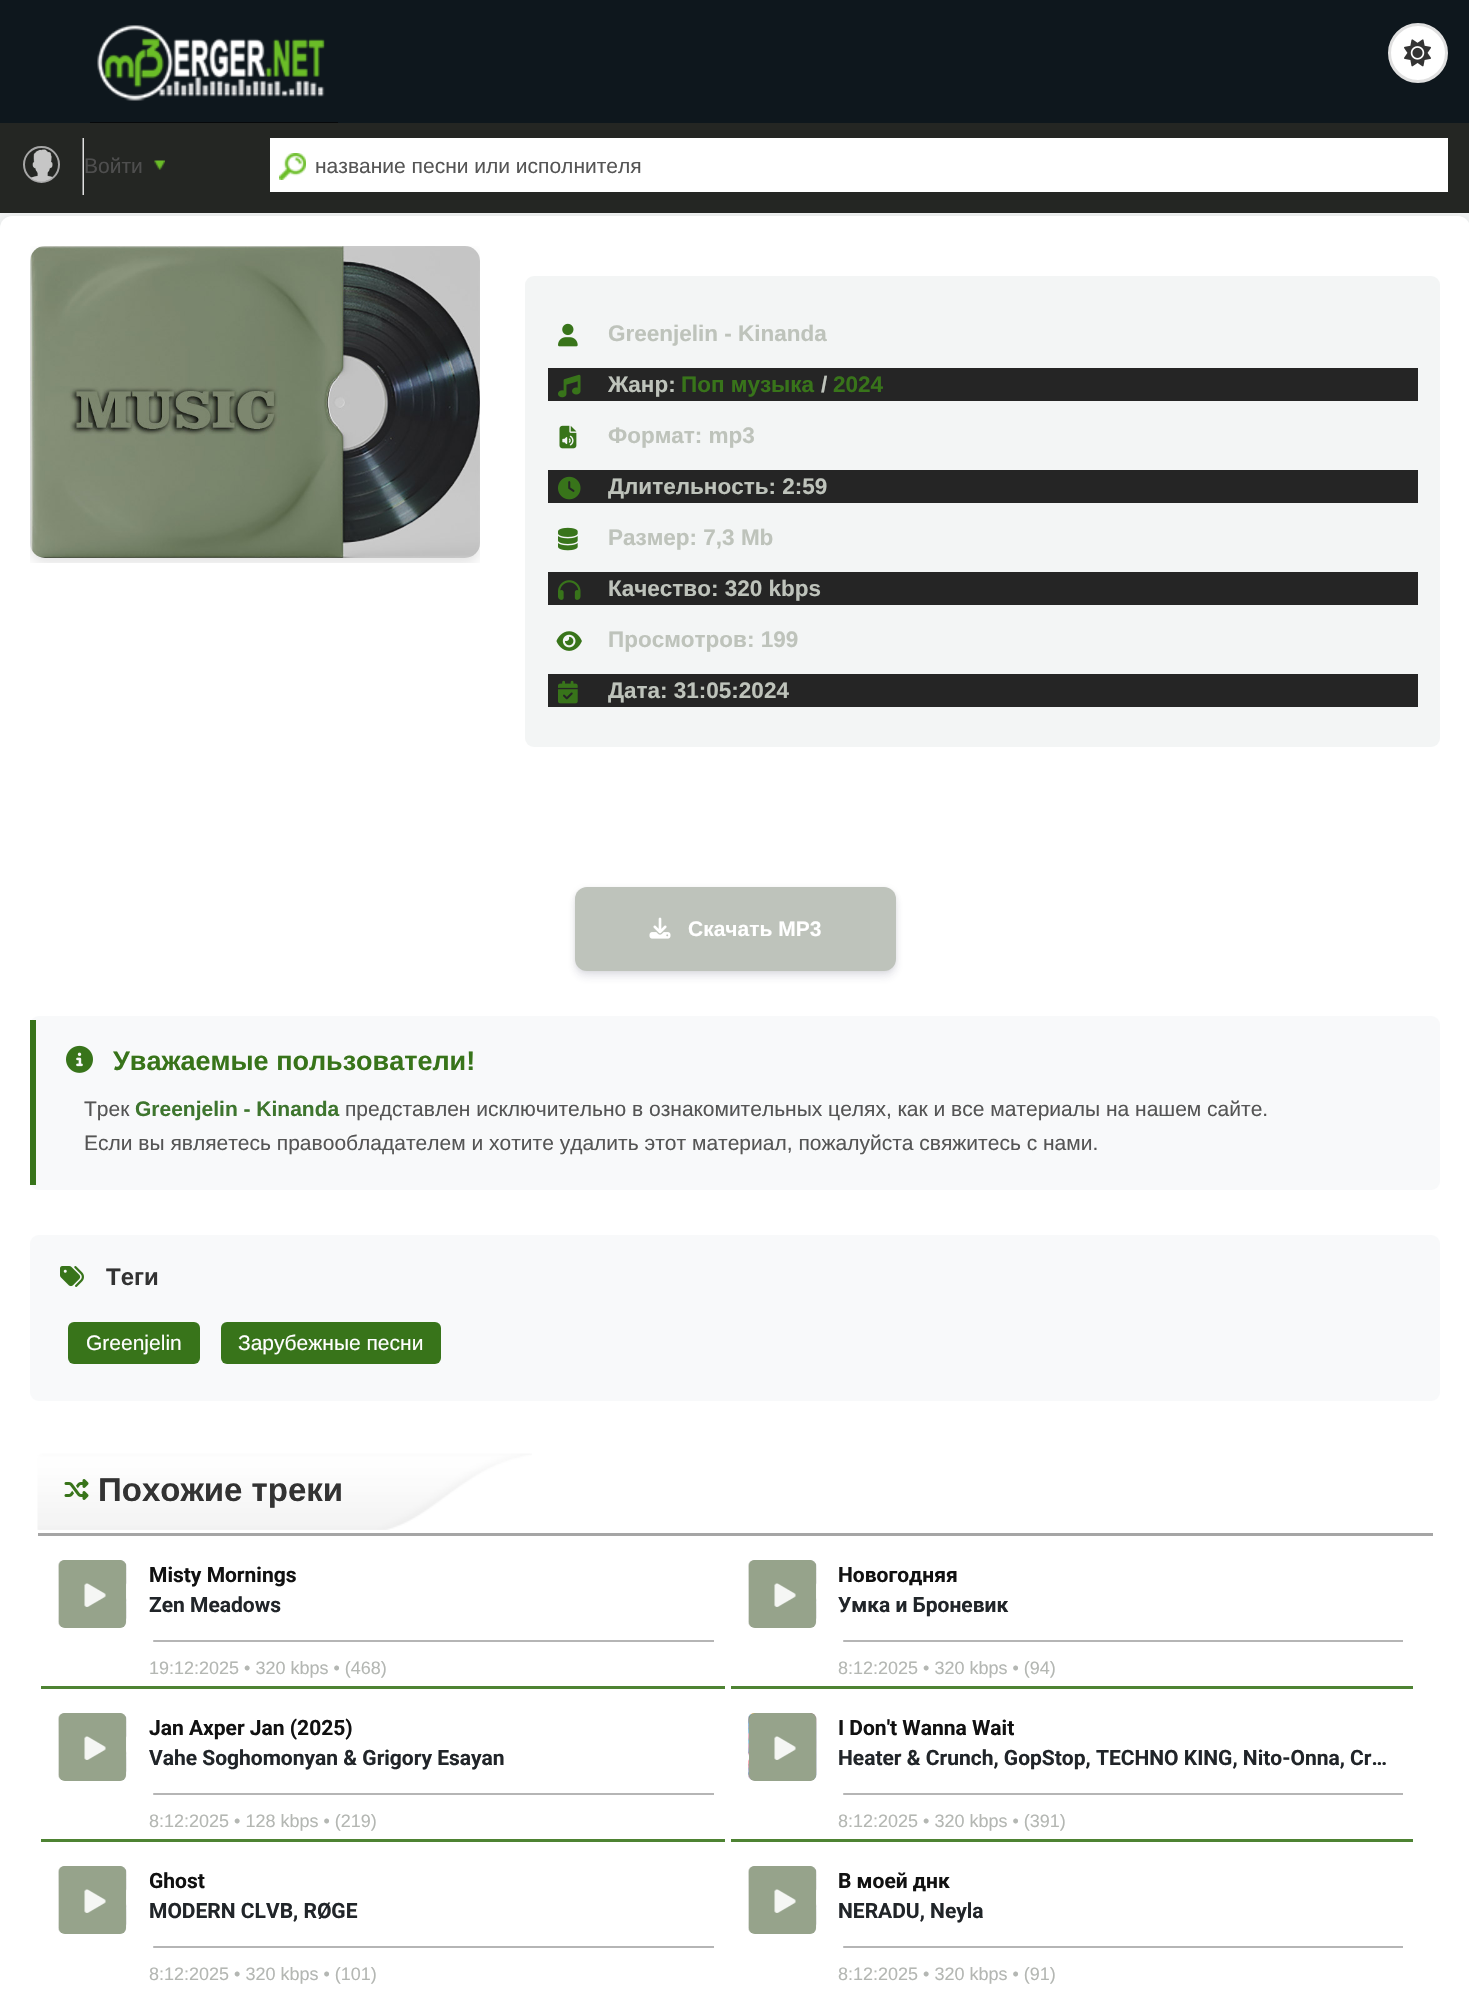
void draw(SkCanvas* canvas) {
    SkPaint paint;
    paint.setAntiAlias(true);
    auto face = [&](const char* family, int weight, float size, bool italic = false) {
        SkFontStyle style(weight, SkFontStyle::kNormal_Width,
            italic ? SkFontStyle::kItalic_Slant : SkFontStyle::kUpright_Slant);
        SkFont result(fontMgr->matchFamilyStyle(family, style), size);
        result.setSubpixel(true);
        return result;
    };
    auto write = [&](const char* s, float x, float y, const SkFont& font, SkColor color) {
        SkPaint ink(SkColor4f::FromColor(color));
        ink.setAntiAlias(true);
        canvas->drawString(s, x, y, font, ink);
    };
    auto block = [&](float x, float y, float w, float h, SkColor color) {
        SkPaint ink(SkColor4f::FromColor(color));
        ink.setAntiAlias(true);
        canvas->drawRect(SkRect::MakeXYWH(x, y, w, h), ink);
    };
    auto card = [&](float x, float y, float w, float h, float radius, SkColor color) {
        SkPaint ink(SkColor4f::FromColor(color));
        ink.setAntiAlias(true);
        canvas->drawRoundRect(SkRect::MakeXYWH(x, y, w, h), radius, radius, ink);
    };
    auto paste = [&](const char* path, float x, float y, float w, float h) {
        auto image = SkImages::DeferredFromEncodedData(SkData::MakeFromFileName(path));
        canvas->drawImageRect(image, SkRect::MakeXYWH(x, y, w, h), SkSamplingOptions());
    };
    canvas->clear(SkColorSetRGB(243, 245, 245));
    block(0, 0, 1469, 123, SkColorSetRGB(14, 23, 29));
    paint.setColor(SK_ColorWHITE);
    canvas->drawCircle(1418, 53, 28.5f, paint);
    paint.setStyle(SkPaint::kStroke_Style);
    paint.setStrokeWidth(3);
    paint.setColor(SkColorSetRGB(224, 224, 224));
    canvas->drawCircle(1418, 53, 28.5f, paint);
    paste("pic1.png", 1404, 39, 27, 28);
    paste("pic2.png", 97, 25, 228, 76);
    block(90, 122, 248, 1, SkColorSetRGB(6, 8, 10));
    paint.setStyle(SkPaint::kFill_Style);
    paint.setColor(SkColorSetARGB(26, 0, 0, 0));
    paint.setMaskFilter(SkMaskFilter::MakeBlur(kNormal_SkBlurStyle, 7.5f));
    canvas->drawRoundRect(SkRect::MakeXYWH(0, 219, 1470, 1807), 12, 12, paint);
    paint.setMaskFilter(nullptr);
    block(0, 123, 1469, 90, SkColorSetRGB(36, 38, 35));
    paste("pic3.png", 82, 138, 2, 57);
    paint.setStyle(SkPaint::kStroke_Style);
    paint.setStrokeWidth(2);
    paint.setColor(SkColorSetRGB(166, 166, 166));
    canvas->drawCircle(41.5f, 164.5f, 17.5f, paint);
    paste("pic4.png", 30, 149, 23, 33);
    paste("pic5.png", 154, 160, 11, 10);
    auto kFont1 = face("Liberation Sans", 400, 21);
    write("Войти", 84, 173, kFont1, SkColorSetRGB(78, 78, 78));
    block(270, 138, 1178, 54, SK_ColorWHITE);
    paste("pic6.png", 279, 153, 27, 27);
    write("название песни или исполнителя", 315, 173, kFont1, SkColorSetRGB(85, 85, 85));
    card(0, 216, 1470, 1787, 12, SK_ColorWHITE);
    canvas->save();
    canvas->clipRect(SkRect::MakeXYWH(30, 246, 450, 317));
    paint.setStyle(SkPaint::kFill_Style);
    paint.setColor(SkColorSetARGB(26, 0, 0, 0));
    paint.setMaskFilter(SkMaskFilter::MakeBlur(kNormal_SkBlurStyle, 6));
    canvas->drawRoundRect(SkRect::MakeXYWH(30, 252, 450, 312), 15, 15, paint);
    paint.setMaskFilter(nullptr);
    canvas->restore();
    paste("pic7.png", 30, 246, 450, 312);
    card(525, 276, 915, 471, 9, SkColorSetRGB(243, 245, 245));
    paste("pic8.png", 558, 323, 20, 24);
    auto kFont2 = face("Liberation Sans", 700, 22.5f);
    write("Greenjelin - Kinanda", 608, 341, kFont2, SkColorSetRGB(190, 195, 187));
    block(548, 368, 870, 33, SkColorSetRGB(37, 37, 37));
    paste("pic9.png", 558, 374, 23, 24);
    write("Жанр:", 608, 392, kFont2, SkColorSetRGB(190, 195, 187));
    write("Поп музыка", 681, 392, kFont2, SkColorSetRGB(56, 116, 26));
    write("/", 821, 392, kFont2, SkColorSetRGB(190, 195, 187));
    write("2024", 833, 392, kFont2, SkColorSetRGB(56, 116, 26));
    paste("pic10.png", 559, 425, 18, 24);
    write("Формат: mp3", 608, 443, kFont2, SkColorSetRGB(190, 195, 187));
    block(548, 470, 870, 33, SkColorSetRGB(37, 37, 37));
    paste("pic11.png", 558, 476, 23, 24);
    write("Длительность: 2:59", 608, 494, kFont2, SkColorSetRGB(190, 195, 187));
    paste("pic12.png", 558, 527, 20, 24);
    write("Размер: 7,3 Mb", 608, 545, kFont2, SkColorSetRGB(190, 195, 187));
    block(548, 572, 870, 33, SkColorSetRGB(37, 37, 37));
    paste("pic13.png", 558, 580, 23, 20);
    write("Качество: 320 kbps", 608, 596, kFont2, SkColorSetRGB(190, 195, 187));
    paste("pic14.png", 556, 631, 26, 20);
    write("Просмотров: 199", 608, 647, kFont2, SkColorSetRGB(190, 195, 187));
    block(548, 674, 870, 33, SkColorSetRGB(37, 37, 37));
    paste("pic15.png", 558, 680, 20, 24);
    write("Дата: 31:05:2024", 608, 698, kFont2, SkColorSetRGB(190, 195, 187));
    paint.setColor(SkColorSetARGB(20, 0, 0, 0));
    paint.setMaskFilter(SkMaskFilter::MakeBlur(kNormal_SkBlurStyle, 2));
    canvas->drawRoundRect(SkRect::MakeXYWH(575, 888, 321, 84), 12, 12, paint);
    paint.setMaskFilter(nullptr);
    paint.setColor(SkColorSetARGB(28, 50, 50, 93));
    paint.setMaskFilter(SkMaskFilter::MakeBlur(kNormal_SkBlurStyle, 4.5f));
    canvas->drawRoundRect(SkRect::MakeXYWH(575, 893, 321, 84), 12, 12, paint);
    paint.setMaskFilter(nullptr);
    card(575, 887, 321, 84, 12, SkColorSetRGB(190, 195, 187));
    paste("pic16.png", 649, 917, 22, 22);
    auto kFont3 = face("Liberation Sans", 700, 21);
    write("Скачать MP3", 688, 936, kFont3, SK_ColorWHITE);
    card(30, 1016, 1410, 174, 9, SkColorSetRGB(248, 249, 250));
    block(30, 1020, 6, 165, SkColorSetRGB(56, 116, 26));
    paste("pic17.png", 66, 1045, 27, 28);
    auto kFont4 = face("Liberation Sans", 700, 27);
    write("Уважаемые пользователи!", 113, 1070, kFont4, SkColorSetRGB(56, 116, 26));
    write("Трек", 84, 1116, kFont1, SkColorSetRGB(85, 85, 85));
    write("Greenjelin - Kinanda", 135, 1116, kFont3, SkColorSetRGB(62, 117, 46));
    write("представлен исключительно в ознакомительных целях, как и все материалы на нашем сайте.", 345, 1116, kFont1, SkColorSetRGB(85, 85, 85));
    write("Если вы являетесь правообладателем и хотите удалить этот материал, пожалуйста свяжитесь с нами.", 84, 1150, kFont1, SkColorSetRGB(85, 85, 85));
    card(30, 1235, 1410, 166, 9, SkColorSetRGB(248, 249, 250));
    paste("pic18.png", 60, 1266, 24, 21);
    auto kFont5 = face("Liberation Sans", 700, 24);
    write("Теги", 106, 1285, kFont5, SkColorSetRGB(51, 51, 51));
    card(68, 1322, 132, 42, 6, SkColorSetRGB(56, 116, 26));
    write("Greenjelin", 86, 1350, kFont1, SK_ColorWHITE);
    card(221, 1322, 220, 42, 6, SkColorSetRGB(56, 116, 26));
    write("Зарубежные песни", 238, 1350, kFont1, SK_ColorWHITE);
    paste("pic19.png", 37, 1453, 495, 77);
    block(38, 1533, 1395, 3, SkColorSetRGB(165, 165, 165));
    paste("pic20.png", 64, 1479, 25, 21);
    auto kFont6 = face("Liberation Sans", 700, 33);
    write("Похожие треки", 98, 1501, kFont6, SkColorSetRGB(51, 51, 51));
    block(41, 1686, 684, 3, SkColorSetRGB(78, 131, 51));
    paste("pic21.png", 58, 1560, 69, 68);
    card(59, 1560, 67, 68, 6, SkColorSetRGB(159, 173, 147));
    card(59, 1560, 67, 68, 6, SkColorSetARGB(18, 26, 26, 26));
    paste("pic22.png", 84, 1583, 22, 24);
    auto kFont7 = face("Roboto", 700, 21);
    write("Misty Mornings", 149, 1582, kFont7, SkColorSetRGB(17, 17, 17));
    write("Zen Meadows", 149, 1612, kFont7, SkColorSetRGB(33, 37, 41));
    paint.setColor(SkColorSetRGB(181, 181, 181));
    canvas->drawPath(SkPathBuilder().moveTo(154, 1640).lineTo(714, 1640).lineTo(714, 1642).lineTo(154, 1642).cubicTo(153.5f, 1642, 153, 1641.5f, 153, 1641).cubicTo(153, 1640.5f, 153.5f, 1640, 154, 1640).close().detach(), paint);
    auto kFont8 = face("Liberation Sans", 400, 18);
    write("19:12:2025 • 320 kbps • (468)", 149, 1674, kFont8, SkColorSetRGB(180, 183, 179));
    block(731, 1686, 682, 3, SkColorSetRGB(78, 131, 51));
    paste("pic21.png", 748, 1560, 69, 68);
    card(749, 1560, 67, 68, 6, SkColorSetRGB(159, 173, 147));
    card(749, 1560, 67, 68, 6, SkColorSetARGB(18, 26, 26, 26));
    paste("pic22.png", 774, 1583, 22, 24);
    write("Новогодняя", 838, 1582, kFont7, SkColorSetRGB(17, 17, 17));
    write("Умка и Броневик", 838, 1612, kFont7, SkColorSetRGB(33, 37, 41));
    canvas->drawPath(SkPathBuilder().moveTo(844, 1640).lineTo(1403, 1640).lineTo(1403, 1642).lineTo(844, 1642).cubicTo(843.5f, 1642, 843, 1641.5f, 843, 1641).cubicTo(843, 1640.5f, 843.5f, 1640, 844, 1640).close().detach(), paint);
    write("8:12:2025 • 320 kbps • (94)", 838, 1674, kFont8, SkColorSetRGB(180, 183, 179));
    block(41, 1839, 684, 3, SkColorSetRGB(78, 131, 51));
    paste("pic21.png", 58, 1713, 69, 68);
    card(59, 1713, 67, 68, 6, SkColorSetRGB(159, 173, 147));
    card(59, 1713, 67, 68, 6, SkColorSetARGB(18, 26, 26, 26));
    paste("pic22.png", 84, 1736, 22, 24);
    write("Jan Axper Jan (2025)", 149, 1735, kFont7, SkColorSetRGB(17, 17, 17));
    write("Vahe Soghomonyan & Grigory Esayan", 149, 1765, kFont7, SkColorSetRGB(33, 37, 41));
    canvas->drawPath(SkPathBuilder().moveTo(154, 1793).lineTo(714, 1793).lineTo(714, 1795).lineTo(154, 1795).cubicTo(153.5f, 1795, 153, 1794.5f, 153, 1794).cubicTo(153, 1793.5f, 153.5f, 1793, 154, 1793).close().detach(), paint);
    write("8:12:2025 • 128 kbps • (219)", 149, 1827, kFont8, SkColorSetRGB(180, 183, 179));
    block(731, 1839, 682, 3, SkColorSetRGB(78, 131, 51));
    paste("pic23.png", 748, 1713, 69, 68);
    card(749, 1713, 67, 68, 6, SkColorSetRGB(159, 173, 147));
    card(749, 1713, 67, 68, 6, SkColorSetARGB(18, 26, 26, 26));
    paste("pic22.png", 774, 1736, 22, 24);
    write("I Don't Wanna Wait", 838, 1735, kFont7, SkColorSetRGB(17, 17, 17));
    write("Heater & Crunch, GopStop, TECHNO KING, Nito-Onna, Cr…", 838, 1765, kFont7, SkColorSetRGB(33, 37, 41));
    canvas->drawPath(SkPathBuilder().moveTo(844, 1793).lineTo(1403, 1793).lineTo(1403, 1795).lineTo(844, 1795).cubicTo(843.5f, 1795, 843, 1794.5f, 843, 1794).cubicTo(843, 1793.5f, 843.5f, 1793, 844, 1793).close().detach(), paint);
    write("8:12:2025 • 320 kbps • (391)", 838, 1827, kFont8, SkColorSetRGB(180, 183, 179));
    paste("pic21.png", 58, 1866, 69, 68);
    card(59, 1866, 67, 68, 6, SkColorSetRGB(159, 173, 147));
    card(59, 1866, 67, 68, 6, SkColorSetARGB(18, 26, 26, 26));
    paste("pic22.png", 84, 1889, 22, 24);
    write("Ghost", 149, 1888, kFont7, SkColorSetRGB(17, 17, 17));
    write("MODERN CLVB, RØGE", 149, 1918, kFont7, SkColorSetRGB(33, 37, 41));
    canvas->drawPath(SkPathBuilder().moveTo(154, 1946).lineTo(714, 1946).lineTo(714, 1948).lineTo(154, 1948).cubicTo(153.5f, 1948, 153, 1947.5f, 153, 1947).cubicTo(153, 1946.5f, 153.5f, 1946, 154, 1946).close().detach(), paint);
    write("8:12:2025 • 320 kbps • (101)", 149, 1980, kFont8, SkColorSetRGB(180, 183, 179));
    paste("pic21.png", 748, 1866, 69, 68);
    card(749, 1866, 67, 68, 6, SkColorSetRGB(159, 173, 147));
    card(749, 1866, 67, 68, 6, SkColorSetARGB(18, 26, 26, 26));
    paste("pic22.png", 774, 1889, 22, 24);
    write("В моей днк", 838, 1888, kFont7, SkColorSetRGB(17, 17, 17));
    write("NERADU, Neyla", 838, 1918, kFont7, SkColorSetRGB(33, 37, 41));
    canvas->drawPath(SkPathBuilder().moveTo(844, 1946).lineTo(1403, 1946).lineTo(1403, 1948).lineTo(844, 1948).cubicTo(843.5f, 1948, 843, 1947.5f, 843, 1947).cubicTo(843, 1946.5f, 843.5f, 1946, 844, 1946).close().detach(), paint);
    write("8:12:2025 • 320 kbps • (91)", 838, 1980, kFont8, SkColorSetRGB(180, 183, 179));
}
